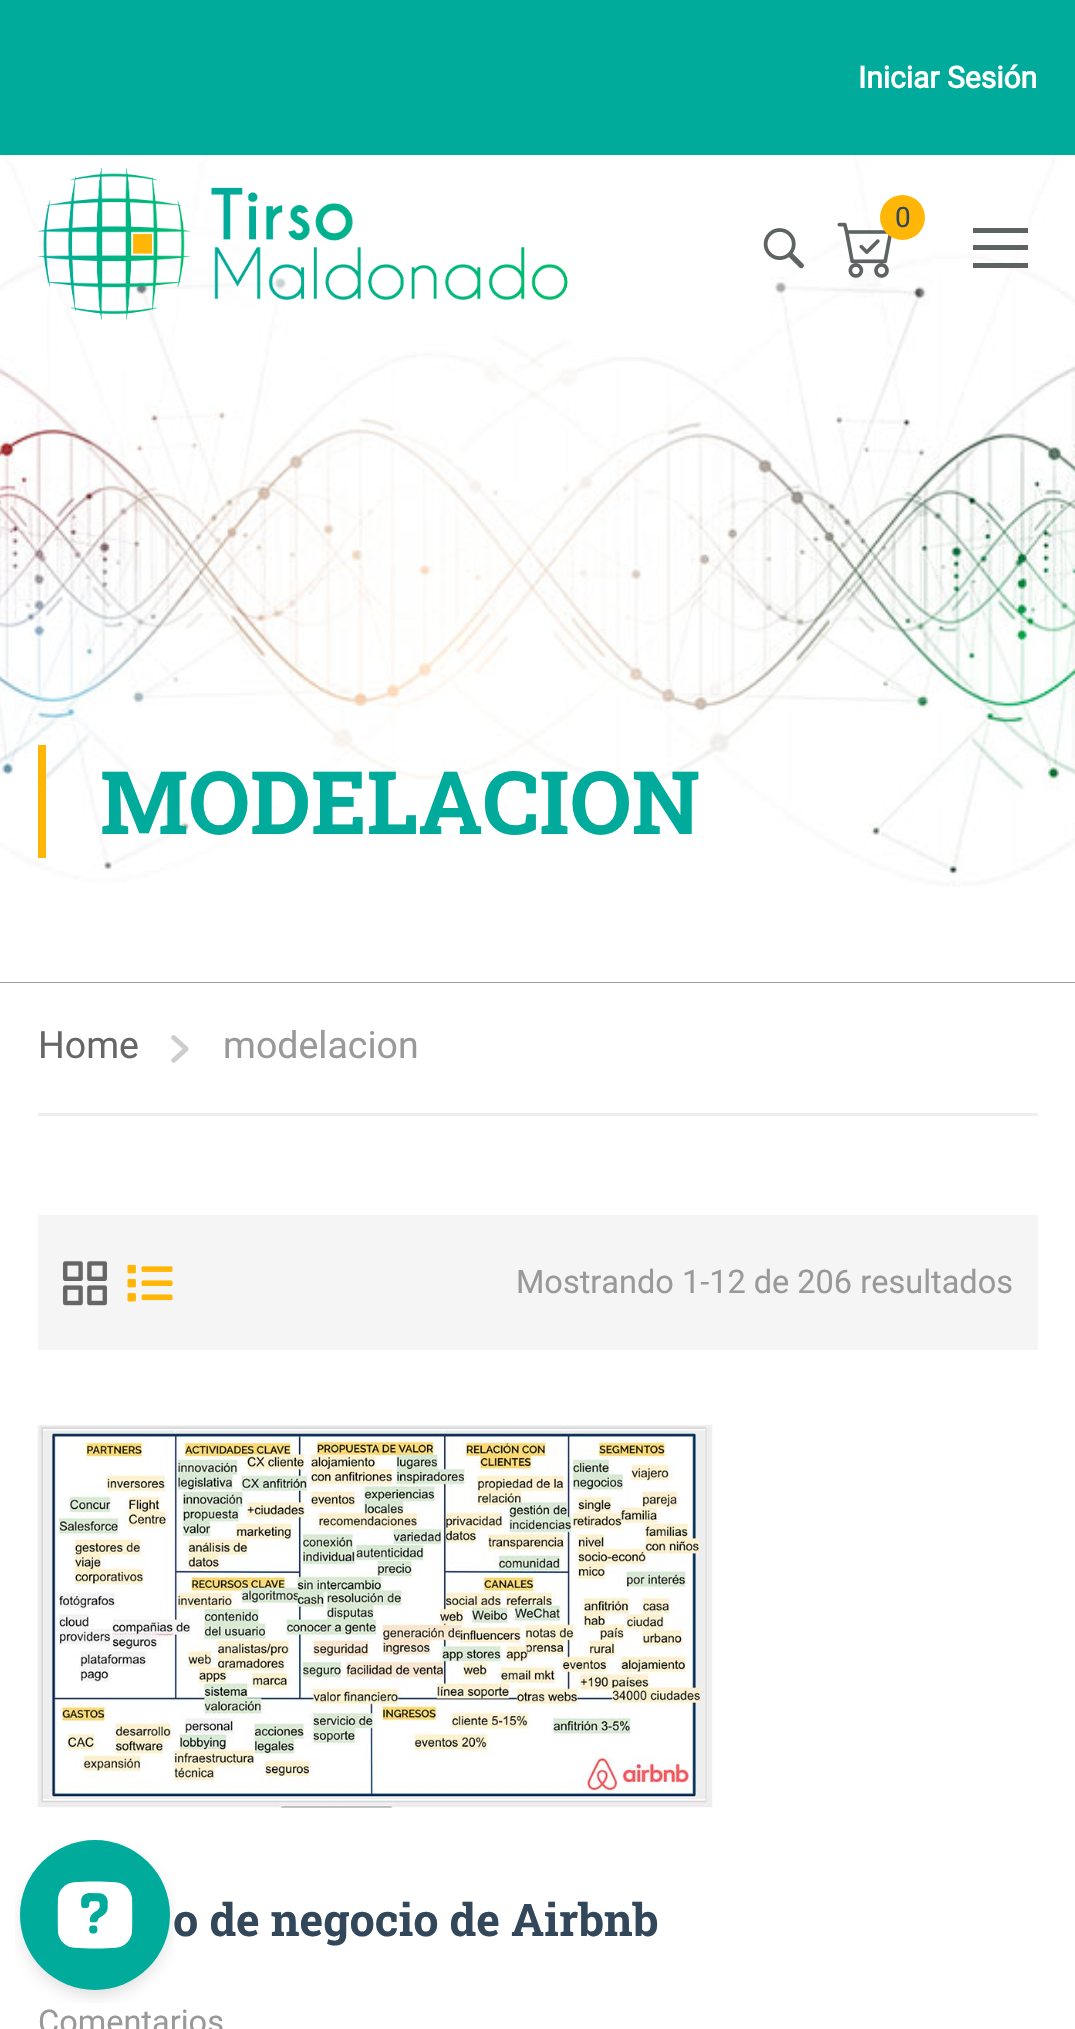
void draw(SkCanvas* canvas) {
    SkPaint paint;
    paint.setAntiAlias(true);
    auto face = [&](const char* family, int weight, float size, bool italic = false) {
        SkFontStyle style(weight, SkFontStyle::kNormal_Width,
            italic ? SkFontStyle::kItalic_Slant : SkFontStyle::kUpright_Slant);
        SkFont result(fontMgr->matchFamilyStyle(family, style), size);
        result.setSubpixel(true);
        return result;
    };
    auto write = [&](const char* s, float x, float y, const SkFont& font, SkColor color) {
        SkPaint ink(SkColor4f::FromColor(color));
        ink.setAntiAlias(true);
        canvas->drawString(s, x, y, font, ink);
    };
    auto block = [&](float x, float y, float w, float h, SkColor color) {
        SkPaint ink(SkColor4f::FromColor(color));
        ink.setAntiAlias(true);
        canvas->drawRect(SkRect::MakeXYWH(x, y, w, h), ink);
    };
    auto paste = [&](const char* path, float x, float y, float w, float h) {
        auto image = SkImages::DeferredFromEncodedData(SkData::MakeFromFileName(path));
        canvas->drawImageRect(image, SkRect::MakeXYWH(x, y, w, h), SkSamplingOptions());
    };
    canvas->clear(SK_ColorWHITE);
    block(0, 0, 1075, 155, SkColorSetRGB(0, 171, 155));
    auto kFont1 = face("Roboto", 700, 30);
    write("Iniciar Sesión", 858, 88, kFont1, SK_ColorWHITE);
    block(0, 982, 1075, 1, SkColorSetRGB(56, 61, 67));
    paste("pic4.png", 0, 155, 1075, 828);
    paste("pic1.png", 38, 168, 530, 153);
    paste("pic2.png", 837, 222, 55, 56);
    paint.setColor(SkColorSetRGB(255, 182, 6));
    canvas->drawCircle(902.5f, 217.5f, 22.5f, paint);
    auto kFont2 = face("Roboto", 400, 28);
    write("0", 895, 227, kFont2, SkColorSetRGB(51, 71, 91));
    paste("pic3.png", 763, 228, 41, 41);
    block(973, 228, 55, 5, SkColorSetRGB(93, 99, 99));
    block(973, 245, 55, 5, SkColorSetRGB(93, 99, 99));
    block(973, 263, 55, 5, SkColorSetRGB(93, 99, 99));
    block(38, 745, 8, 113, SkColorSetRGB(255, 182, 6));
    auto kFont3 = face("Roboto Slab", 700, 87.5f);
    write("MODELACION", 100, 834, kFont3, SkColorSetRGB(0, 171, 155));
    block(38, 1113, 1000, 3, SkColorSetRGB(238, 238, 238));
    auto kFont4 = face("Roboto", 400, 37.5f);
    write("Home", 38, 1058, kFont4, SkColorSetRGB(102, 102, 102));
    paste("pic5.png", 171, 1035, 18, 28);
    write("modelacion", 223, 1058, kFont4, SkColorSetRGB(153, 153, 153));
    block(38, 1215, 1000, 135, SkColorSetRGB(245, 245, 245));
    paste("pic6.png", 63, 1261, 44, 45);
    paste("pic7.png", 127, 1264, 46, 38);
    auto kFont5 = face("Roboto", 400, 32.5f);
    write("Mostrando 1-12 de 206 resultados", 516, 1293, kFont5, SkColorSetRGB(153, 153, 153));
    paste("pic8.png", 37, 1425, 676, 383);
    auto kFont6 = face("Roboto Slab", 700, 45);
    write("o de negocio de Airbnb", 173, 1936, kFont6, SkColorSetRGB(51, 71, 91));
    write("Comentarios", 38, 2033, kFont5, SkColorSetRGB(153, 153, 153));
    paste("pic9.png", 15, 1840, 160, 163);
}
